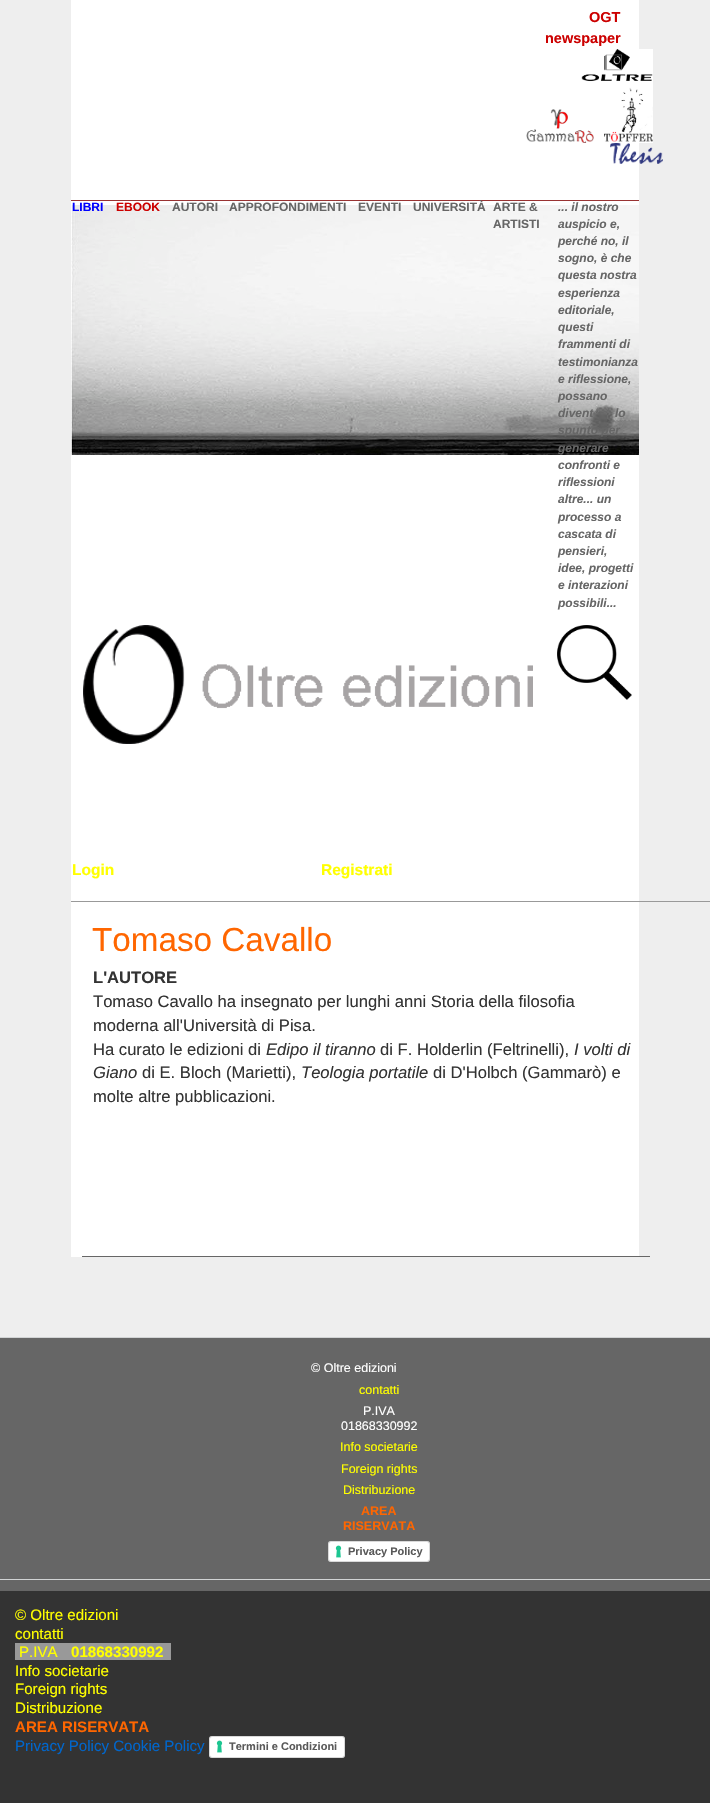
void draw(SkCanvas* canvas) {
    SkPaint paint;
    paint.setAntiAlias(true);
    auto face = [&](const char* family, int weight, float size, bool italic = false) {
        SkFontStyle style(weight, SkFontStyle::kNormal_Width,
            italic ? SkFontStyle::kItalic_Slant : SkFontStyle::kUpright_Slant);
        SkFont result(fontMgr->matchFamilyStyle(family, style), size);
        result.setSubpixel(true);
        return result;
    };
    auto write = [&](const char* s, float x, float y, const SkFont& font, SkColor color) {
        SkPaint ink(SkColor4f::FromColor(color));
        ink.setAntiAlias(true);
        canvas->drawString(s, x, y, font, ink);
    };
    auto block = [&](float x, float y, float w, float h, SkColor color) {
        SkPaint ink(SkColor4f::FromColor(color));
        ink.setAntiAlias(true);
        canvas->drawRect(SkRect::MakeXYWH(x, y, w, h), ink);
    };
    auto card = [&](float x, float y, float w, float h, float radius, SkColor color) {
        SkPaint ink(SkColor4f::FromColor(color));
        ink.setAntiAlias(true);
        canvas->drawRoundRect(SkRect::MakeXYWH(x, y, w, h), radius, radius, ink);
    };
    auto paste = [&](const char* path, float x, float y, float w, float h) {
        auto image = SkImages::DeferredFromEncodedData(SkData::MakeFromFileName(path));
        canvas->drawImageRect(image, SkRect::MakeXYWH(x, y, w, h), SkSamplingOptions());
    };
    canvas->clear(SkColorSetRGB(238, 238, 238));
    block(71, 0, 568, 1257, SK_ColorWHITE);
    block(71, 200, 568, 1, SkColorSetRGB(153, 51, 51));
    auto kFont1 = face("Liberation Sans", 700, 14.5f);
    write("OGT", 589, 22, kFont1, SkColorSetRGB(204, 0, 0));
    write("newspaper", 545, 43, kFont1, SkColorSetRGB(204, 0, 0));
    paste("pic1.png", 581, 49, 72, 34);
    paste("pic2.png", 526, 109, 68, 34);
    paste("pic3.png", 604, 83, 49, 60);
    paste("pic4.png", 610, 143, 53, 21);
    paste("pic5.png", 71, 205, 568, 250);
    auto kFont2 = face("Liberation Sans", 700, 12);
    write("LIBRI", 72, 211, kFont2, SkColorSetRGB(0, 0, 255));
    write("EBOOK", 116, 211, kFont2, SkColorSetRGB(204, 0, 0));
    write("AUTORI", 172, 211, kFont2, SkColorSetRGB(102, 102, 102));
    write("APPROFONDIMENTI", 229, 211, kFont2, SkColorSetRGB(102, 102, 102));
    write("EVENTI", 358, 211, kFont2, SkColorSetRGB(102, 102, 102));
    write("UNIVERSITÀ", 413, 211, kFont2, SkColorSetRGB(102, 102, 102));
    write("ARTE &", 493, 211, kFont2, SkColorSetRGB(102, 102, 102));
    write("ARTISTI", 493, 228, kFont2, SkColorSetRGB(102, 102, 102));
    auto kFont3 = face("Liberation Sans", 700, 12, true);
    write("... il nostro", 558, 211, kFont3, SkColorSetRGB(102, 102, 102));
    write("auspicio e,", 558, 228, kFont3, SkColorSetRGB(102, 102, 102));
    write("perché no, il", 558, 245, kFont3, SkColorSetRGB(102, 102, 102));
    write("sogno, è che", 558, 262, kFont3, SkColorSetRGB(102, 102, 102));
    write("questa nostra", 558, 279, kFont3, SkColorSetRGB(102, 102, 102));
    write("esperienza", 558, 297, kFont3, SkColorSetRGB(102, 102, 102));
    write("editoriale,", 558, 314, kFont3, SkColorSetRGB(102, 102, 102));
    write("questi", 558, 331, kFont3, SkColorSetRGB(102, 102, 102));
    write("frammenti di", 558, 348, kFont3, SkColorSetRGB(102, 102, 102));
    write("testimonianza", 558, 366, kFont3, SkColorSetRGB(102, 102, 102));
    write("e riflessione,", 558, 383, kFont3, SkColorSetRGB(102, 102, 102));
    write("possano", 558, 400, kFont3, SkColorSetRGB(102, 102, 102));
    write("divent", 558, 417, kFont3, SkColorSetRGB(102, 102, 102));
    write("lo", 615, 417, kFont3, SkColorSetRGB(102, 102, 102));
    write("spunto per", 558, 434, kFont3, SkColorSetRGB(102, 102, 102));
    write("generare", 558, 452, kFont3, SkColorSetRGB(102, 102, 102));
    write("confronti e", 558, 469, kFont3, SkColorSetRGB(102, 102, 102));
    write("riflessioni", 558, 486, kFont3, SkColorSetRGB(102, 102, 102));
    write("altre... un", 558, 503, kFont3, SkColorSetRGB(102, 102, 102));
    write("processo a", 558, 521, kFont3, SkColorSetRGB(102, 102, 102));
    write("cascata di", 558, 538, kFont3, SkColorSetRGB(102, 102, 102));
    write("pensieri,", 558, 555, kFont3, SkColorSetRGB(102, 102, 102));
    write("idee, progetti", 558, 572, kFont3, SkColorSetRGB(102, 102, 102));
    write("e interazioni", 558, 589, kFont3, SkColorSetRGB(102, 102, 102));
    write("possibili...", 558, 607, kFont3, SkColorSetRGB(102, 102, 102));
    block(71, 901, 639, 1, SkColorSetRGB(153, 153, 153));
    paste("pic6.png", 83, 625, 450, 119);
    paste("pic7.png", 557, 625, 75, 75);
    auto kFont4 = face("Liberation Sans", 700, 15.5f);
    write("Login", 72, 875, kFont4, SkColorSetRGB(255, 255, 0));
    write("Registrati", 321, 875, kFont4, SkColorSetRGB(255, 255, 0));
    block(82, 1256, 568, 1, SkColorSetRGB(102, 102, 102));
    auto kFont5 = face("Liberation Sans", 400, 33.25f);
    write("Tomaso Cavallo", 92, 951, kFont5, SkColorSetRGB(255, 102, 0));
    auto kFont6 = face("Liberation Sans", 700, 16.6f);
    write("L'AUTORE", 93, 983, kFont6, SkColorSetRGB(51, 51, 51));
    auto kFont7 = face("Liberation Sans", 400, 16.6f);
    write("Tomaso Cavallo ha insegnato per lunghi anni Storia della filosofia", 93, 1007, kFont7, SkColorSetRGB(51, 51, 51));
    write("moderna all'Università di Pisa.", 93, 1031, kFont7, SkColorSetRGB(51, 51, 51));
    write("Ha curato le edizioni di", 93, 1055, kFont7, SkColorSetRGB(51, 51, 51));
    auto kFont8 = face("Liberation Sans", 400, 16.6f, true);
    write("Edipo il tiranno", 266, 1055, kFont8, SkColorSetRGB(51, 51, 51));
    write("di F. Holderlin (Feltrinelli),", 380, 1055, kFont7, SkColorSetRGB(51, 51, 51));
    write("I volti di", 574, 1055, kFont8, SkColorSetRGB(51, 51, 51));
    write("Giano", 93, 1078, kFont8, SkColorSetRGB(51, 51, 51));
    write("di E. Bloch (Marietti),", 142, 1078, kFont7, SkColorSetRGB(51, 51, 51));
    write("Teologia portatile", 301, 1078, kFont8, SkColorSetRGB(51, 51, 51));
    write("di D'Holbch (Gammarò) e", 433, 1078, kFont7, SkColorSetRGB(51, 51, 51));
    write("molte altre pubblicazioni.", 93, 1102, kFont7, SkColorSetRGB(51, 51, 51));
    block(0, 1338, 710, 241, SkColorSetRGB(102, 102, 102));
    block(0, 1337, 710, 1, SkColorSetRGB(209, 211, 212));
    auto kFont9 = face("Liberation Sans", 400, 12.5f);
    write("© Oltre edizioni", 311, 1372, kFont9, SK_ColorWHITE);
    write("contatti", 359, 1394, kFont9, SkColorSetRGB(255, 255, 0));
    write("P.IVA", 363, 1415, kFont9, SK_ColorWHITE);
    write("01868330992", 341, 1430, kFont9, SK_ColorWHITE);
    write("Info societarie", 340, 1451, kFont9, SkColorSetRGB(255, 255, 0));
    write("Foreign rights", 341, 1473, kFont9, SkColorSetRGB(255, 255, 0));
    write("Distribuzione", 343, 1494, kFont9, SkColorSetRGB(255, 255, 0));
    auto kFont10 = face("Liberation Sans", 700, 12.5f);
    write("AREA", 361, 1515, kFont10, SkColorSetRGB(255, 102, 0));
    write("RISERVATA", 343, 1530, kFont10, SkColorSetRGB(255, 102, 0));
    paint.setColor(SkColorSetARGB(38, 0, 0, 0));
    paint.setMaskFilter(SkMaskFilter::MakeBlur(kNormal_SkBlurStyle, 0.5f));
    canvas->drawRoundRect(SkRect::MakeXYWH(329, 1543, 100, 19), 2, 2, paint);
    paint.setMaskFilter(nullptr);
    card(328, 1541, 102, 21, 3, SK_ColorWHITE);
    paste("pic8.png", 335, 1545, 7, 13);
    paint.setStyle(SkPaint::kStroke_Style);
    paint.setStrokeWidth(1);
    canvas->drawRoundRect(SkRect::MakeXYWH(328.5f, 1541.5f, 101, 20), 2.5f, 2.5f, paint);
    auto kFont11 = face("Liberation Sans", 700, 11);
    write("Privacy Policy", 348, 1555, kFont11, SkColorSetRGB(89, 89, 89));
    block(0, 1580, 710, 11, SkColorSetRGB(102, 102, 102));
    block(0, 1579, 710, 1, SkColorSetRGB(209, 211, 212));
    block(0, 1591, 710, 212, SkColorSetRGB(51, 51, 51));
    auto kFont12 = face("Liberation Sans", 400, 15.1f);
    write("© Oltre edizioni", 15, 1620, kFont12, SkColorSetRGB(255, 255, 0));
    write("contatti", 15, 1639, kFont12, SkColorSetRGB(255, 255, 0));
    block(15, 1643, 156, 17, SkColorSetRGB(153, 153, 153));
    write("P.IVA", 19, 1657, kFont12, SkColorSetRGB(255, 255, 0));
    auto kFont13 = face("Liberation Sans", 700, 15.1f);
    write("01868330992", 71, 1657, kFont13, SkColorSetRGB(255, 255, 0));
    write("Info societarie", 15, 1676, kFont12, SkColorSetRGB(255, 255, 0));
    write("Foreign rights", 15, 1694, kFont12, SkColorSetRGB(255, 255, 0));
    write("Distribuzione", 15, 1713, kFont12, SkColorSetRGB(255, 255, 0));
    write("AREA RISERVATA", 15, 1732, kFont13, SkColorSetRGB(255, 102, 0));
    write("Privacy Policy Cookie Policy", 15, 1751, kFont12, SkColorSetRGB(0, 102, 204));
    card(209, 1736, 136, 22, 3, SK_ColorWHITE);
    paste("pic8.png", 216, 1740, 7, 13);
    canvas->drawRoundRect(SkRect::MakeXYWH(209.5f, 1736.5f, 135, 21), 2.5f, 2.5f, paint);
    write("Termini e Condizioni", 229, 1750, kFont11, SkColorSetRGB(89, 89, 89));
}
